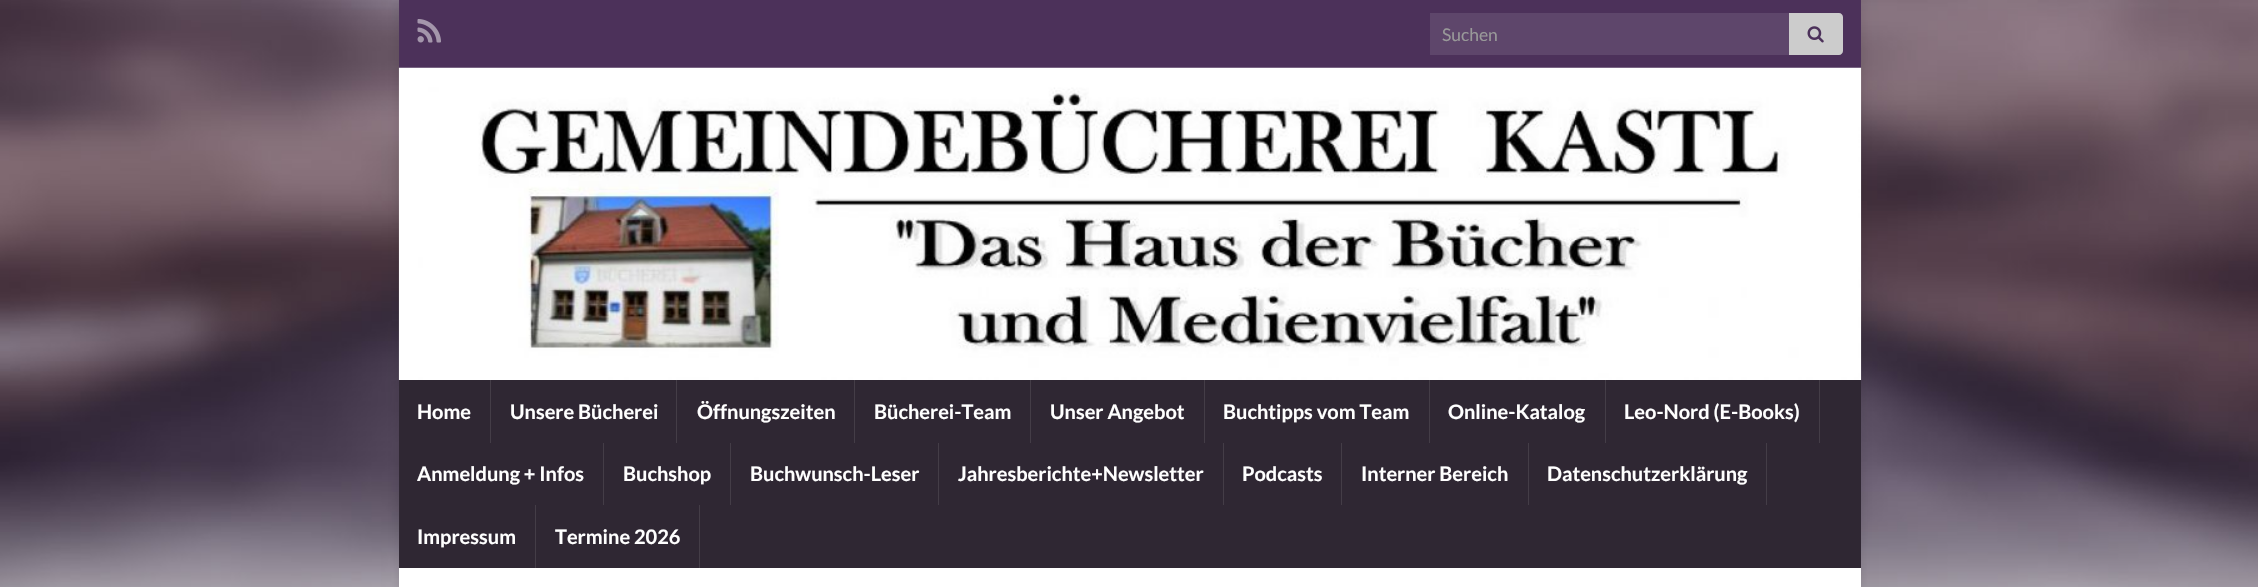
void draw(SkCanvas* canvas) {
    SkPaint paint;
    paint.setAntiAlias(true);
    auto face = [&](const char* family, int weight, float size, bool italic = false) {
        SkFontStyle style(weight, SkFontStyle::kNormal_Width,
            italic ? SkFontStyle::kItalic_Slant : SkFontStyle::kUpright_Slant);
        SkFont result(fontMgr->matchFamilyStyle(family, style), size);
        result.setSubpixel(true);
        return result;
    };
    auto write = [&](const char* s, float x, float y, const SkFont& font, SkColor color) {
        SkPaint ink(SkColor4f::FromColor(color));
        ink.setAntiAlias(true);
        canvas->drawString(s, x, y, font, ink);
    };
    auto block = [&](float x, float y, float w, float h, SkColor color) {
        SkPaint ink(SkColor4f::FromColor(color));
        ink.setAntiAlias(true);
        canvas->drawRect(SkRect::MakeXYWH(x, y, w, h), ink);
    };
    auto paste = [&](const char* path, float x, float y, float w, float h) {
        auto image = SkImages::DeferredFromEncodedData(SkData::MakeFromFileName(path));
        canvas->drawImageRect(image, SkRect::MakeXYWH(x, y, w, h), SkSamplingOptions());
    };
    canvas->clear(SK_ColorWHITE);
    paste("pic1.png", 0, 0, 2258, 587);
    paint.setColor(SkColorSetARGB(26, 0, 0, 0));
    paint.setMaskFilter(SkMaskFilter::MakeBlur(kNormal_SkBlurStyle, 6));
    canvas->drawRect(SkRect::MakeXYWH(399, 0, 1462, 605), paint);
    paint.setMaskFilter(nullptr);
    block(399, 0, 1462, 68, SkColorSetRGB(76, 49, 90));
    paste("pic2.png", 417, 19, 24, 24);
    block(1430, 13, 359, 42, SkColorSetRGB(94, 70, 107));
    auto kFont1 = face("Lato", 400, 17.5f);
    write("Suchen", 1442, 41, kFont1, SkColorSetRGB(153, 153, 153));
    paint.setColor(SkColorSetRGB(204, 204, 204));
    canvas->drawPath(SkPathBuilder().moveTo(1789, 13).lineTo(1839, 13).cubicTo(1841, 13, 1843, 15, 1843, 17).lineTo(1843, 51).cubicTo(1843, 53, 1841, 55, 1839, 55).lineTo(1789, 55).close().detach(), paint);
    paste("pic3.png", 1807, 26, 17, 17);
    paste("pic4.png", 398, 67, 1464, 313);
    block(399, 380, 1462, 188, SkColorSetRGB(47, 39, 51));
    block(490, 380, 1, 63, SkColorSetRGB(68, 61, 71));
    auto kFont2 = face("Lato", 700, 20);
    write("Home", 417, 419, kFont2, SK_ColorWHITE);
    block(676, 380, 1, 63, SkColorSetRGB(68, 61, 71));
    write("Unsere Bücherei", 510, 419, kFont2, SK_ColorWHITE);
    block(854, 380, 1, 63, SkColorSetRGB(68, 61, 71));
    write("Öffnungszeiten", 697, 419, kFont2, SK_ColorWHITE);
    block(1030, 380, 1, 63, SkColorSetRGB(68, 61, 71));
    write("Bücherei-Team", 874, 419, kFont2, SK_ColorWHITE);
    block(1204, 380, 1, 63, SkColorSetRGB(68, 61, 71));
    write("Unser Angebot", 1050, 419, kFont2, SK_ColorWHITE);
    block(1429, 380, 1, 63, SkColorSetRGB(68, 61, 71));
    write("Buchtipps vom Team", 1223, 419, kFont2, SK_ColorWHITE);
    block(1605, 380, 1, 63, SkColorSetRGB(68, 61, 71));
    write("Online-Katalog", 1448, 419, kFont2, SK_ColorWHITE);
    block(1819, 380, 1, 63, SkColorSetRGB(68, 61, 71));
    write("Leo-Nord (E-Books)", 1624, 419, kFont2, SK_ColorWHITE);
    block(603, 443, 1, 62, SkColorSetRGB(68, 61, 71));
    write("Anmeldung + Infos", 417, 481, kFont2, SK_ColorWHITE);
    block(730, 443, 1, 62, SkColorSetRGB(68, 61, 71));
    write("Buchshop", 623, 481, kFont2, SK_ColorWHITE);
    block(938, 443, 1, 62, SkColorSetRGB(68, 61, 71));
    write("Buchwunsch-Leser", 750, 481, kFont2, SK_ColorWHITE);
    block(1223, 443, 1, 62, SkColorSetRGB(68, 61, 71));
    write("Jahresberichte+Newsletter", 958, 481, kFont2, SK_ColorWHITE);
    block(1341, 443, 1, 62, SkColorSetRGB(68, 61, 71));
    write("Podcasts", 1242, 481, kFont2, SK_ColorWHITE);
    block(1528, 443, 1, 62, SkColorSetRGB(68, 61, 71));
    write("Interner Bereich", 1361, 481, kFont2, SK_ColorWHITE);
    block(1766, 443, 1, 62, SkColorSetRGB(68, 61, 71));
    write("Datenschutzerklärung", 1547, 481, kFont2, SK_ColorWHITE);
    block(535, 505, 1, 63, SkColorSetRGB(68, 61, 71));
    write("Impressum", 417, 544, kFont2, SK_ColorWHITE);
    block(699, 505, 1, 63, SkColorSetRGB(68, 61, 71));
    write("Termine 2026", 555, 544, kFont2, SK_ColorWHITE);
    block(399, 568, 1462, 19, SK_ColorWHITE);
}
